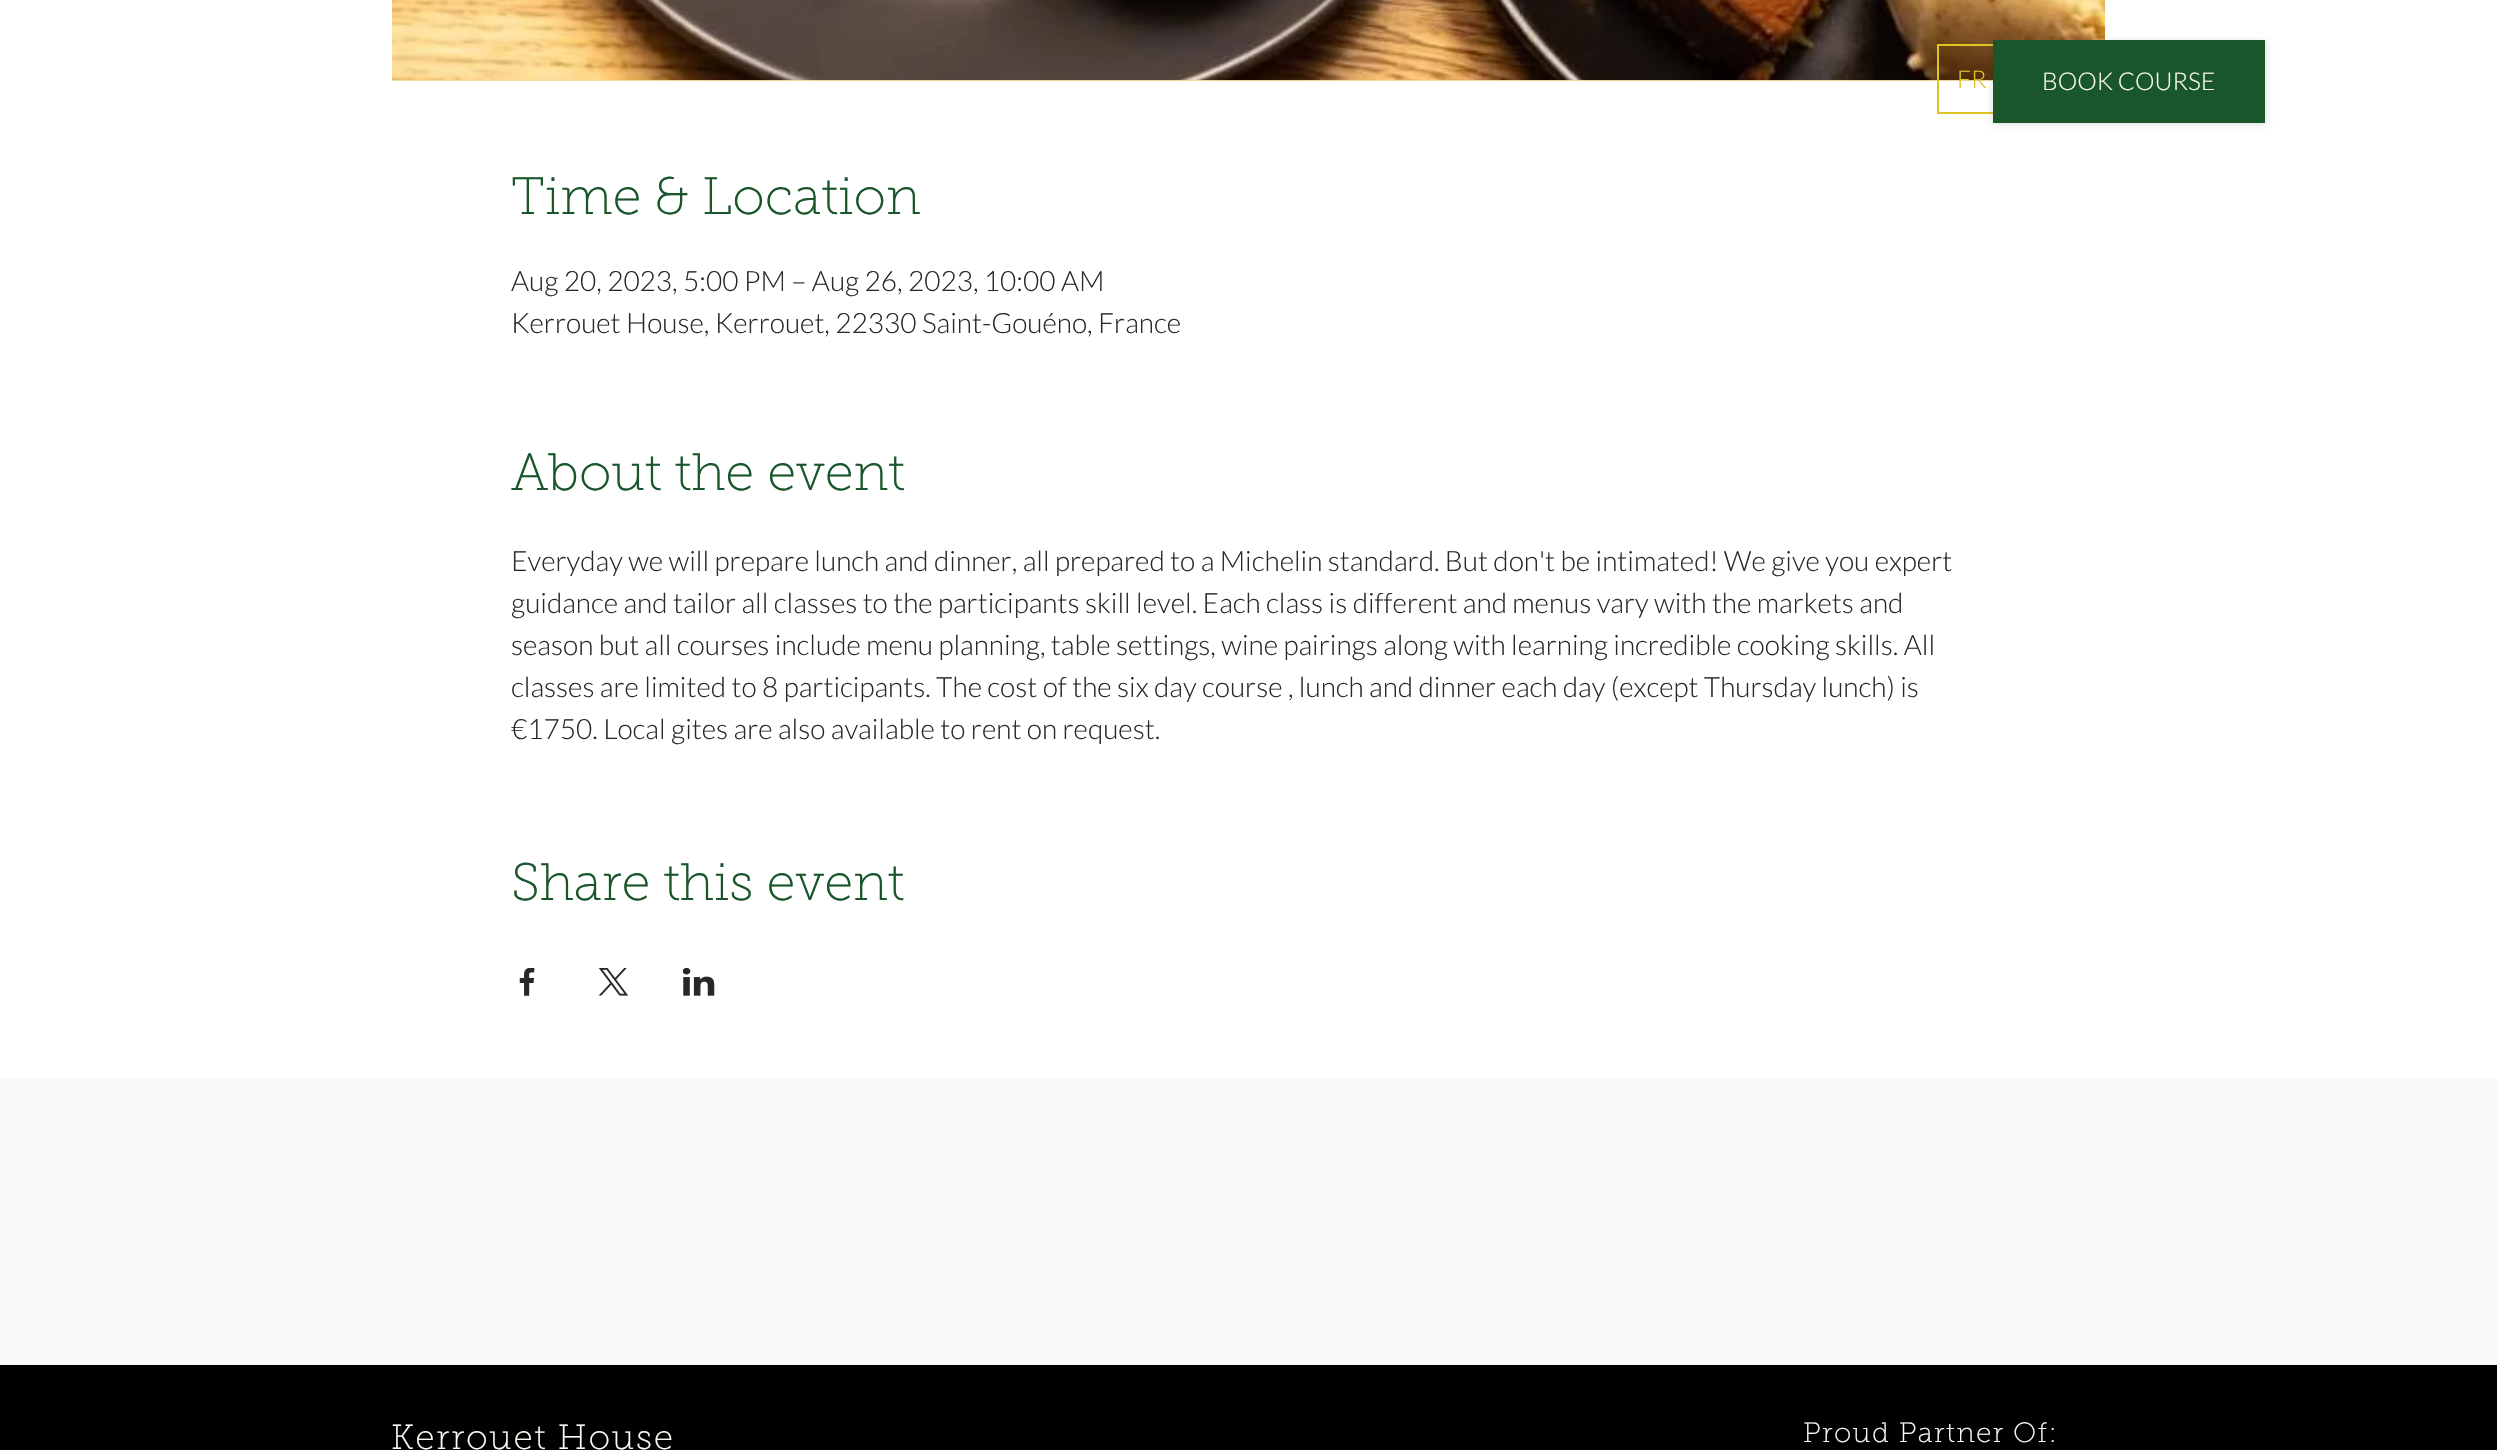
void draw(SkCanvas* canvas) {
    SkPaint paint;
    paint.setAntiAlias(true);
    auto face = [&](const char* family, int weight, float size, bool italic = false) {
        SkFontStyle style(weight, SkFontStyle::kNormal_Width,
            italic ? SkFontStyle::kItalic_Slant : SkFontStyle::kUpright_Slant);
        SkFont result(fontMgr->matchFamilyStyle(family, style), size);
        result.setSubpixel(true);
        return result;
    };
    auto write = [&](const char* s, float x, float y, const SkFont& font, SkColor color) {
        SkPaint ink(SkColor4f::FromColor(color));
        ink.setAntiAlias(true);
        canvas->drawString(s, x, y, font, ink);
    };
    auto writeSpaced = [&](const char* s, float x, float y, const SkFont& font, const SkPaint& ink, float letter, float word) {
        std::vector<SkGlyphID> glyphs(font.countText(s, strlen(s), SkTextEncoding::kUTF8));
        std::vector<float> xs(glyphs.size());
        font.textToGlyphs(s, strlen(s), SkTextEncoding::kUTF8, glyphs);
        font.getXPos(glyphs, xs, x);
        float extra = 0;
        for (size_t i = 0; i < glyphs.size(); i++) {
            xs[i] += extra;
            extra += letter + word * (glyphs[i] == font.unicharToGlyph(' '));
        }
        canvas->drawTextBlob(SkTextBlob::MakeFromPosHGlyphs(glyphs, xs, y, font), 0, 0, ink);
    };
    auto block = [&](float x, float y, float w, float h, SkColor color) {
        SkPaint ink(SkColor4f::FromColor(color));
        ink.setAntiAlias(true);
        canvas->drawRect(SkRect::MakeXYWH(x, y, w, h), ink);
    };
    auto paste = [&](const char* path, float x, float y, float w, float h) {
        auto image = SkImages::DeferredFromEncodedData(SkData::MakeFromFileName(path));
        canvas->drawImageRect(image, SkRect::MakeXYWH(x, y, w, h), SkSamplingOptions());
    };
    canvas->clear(SK_ColorWHITE);
    block(392, 80, 1601, 1, SkColorSetRGB(242, 223, 160));
    paste("pic1.png", 392, 0, 1714, 81);
    paint.setStyle(SkPaint::kStroke_Style);
    paint.setStrokeWidth(2);
    paint.setColor(SkColorSetRGB(223, 197, 35));
    canvas->drawRect(SkRect::MakeXYWH(1938, 45, 68, 68), paint);
    auto kFont1 = face("Lato", 300, 24.5f);
    write("FR", 1957, 88, kFont1, SkColorSetRGB(223, 197, 35));
    paint.setStyle(SkPaint::kFill_Style);
    paint.setColor(SkColorSetARGB(38, 0, 0, 0));
    paint.setMaskFilter(SkMaskFilter::MakeBlur(kNormal_SkBlurStyle, 3.5f));
    canvas->drawRect(SkRect::MakeXYWH(1993, 42, 272, 82), paint);
    paint.setMaskFilter(nullptr);
    block(1993, 40, 272, 83, SkColorSetRGB(25, 86, 43));
    write("BOOK COURSE", 2042, 90, kFont1, SkColorSetRGB(253, 250, 242));
    auto kFont2 = face("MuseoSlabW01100", 100, 52.5f);
    write("Time & Location", 511, 214, kFont2, SkColorSetRGB(25, 86, 43));
    auto kFont3 = face("Lato", 300, 28);
    write("Aug 20, 2023, 5:00 PM – Aug 26, 2023, 10:00 AM", 511, 291, kFont3, SkColorSetRGB(40, 40, 40));
    write("Kerrouet House, Kerrouet, 22330 Saint-Gouéno, France", 511, 333, kFont3, SkColorSetRGB(40, 40, 40));
    write("About the event", 511, 490, kFont2, SkColorSetRGB(25, 86, 43));
    write("Everyday we will prepare lunch and dinner, all prepared to a Michelin standard. But don't be intimated! We give you expert", 511, 571, kFont3, SkColorSetRGB(40, 40, 40));
    write("guidance and tailor all classes to the participants skill level. Each class is different and menus vary with the markets and", 511, 613, kFont3, SkColorSetRGB(40, 40, 40));
    write("season but all courses include menu planning, table settings, wine pairings along with learning incredible cooking skills. All", 511, 655, kFont3, SkColorSetRGB(40, 40, 40));
    write("classes are limited to 8 participants. The cost of the six day course , lunch and dinner each day (except Thursday lunch) is", 511, 697, kFont3, SkColorSetRGB(40, 40, 40));
    write("€1750. Local gites are also available to rent on request.", 511, 739, kFont3, SkColorSetRGB(40, 40, 40));
    write("Share this event", 511, 900, kFont2, SkColorSetRGB(25, 86, 43));
    paste("pic2.png", 519, 968, 16, 28);
    paste("pic3.png", 598, 968, 31, 28);
    paste("pic4.png", 683, 968, 32, 28);
    block(0, 1365, 2497, 85, SK_ColorBLACK);
    block(0, 1078, 2497, 287, SkColorSetRGB(250, 250, 250));
    auto kFont4 = face("MuseoSlabW01100", 100, 35);
    paint.setColor(SkColorSetRGB(253, 250, 242));
    writeSpaced("Kerrouet House", 391, 1449, kFont4, paint, 1.75f, 0);
    auto kFont5 = face("MuseoSlabW01100", 100, 28);
    writeSpaced("Proud Partner Of:", 1803, 1442, kFont5, paint, 1.4f, 0);
}
